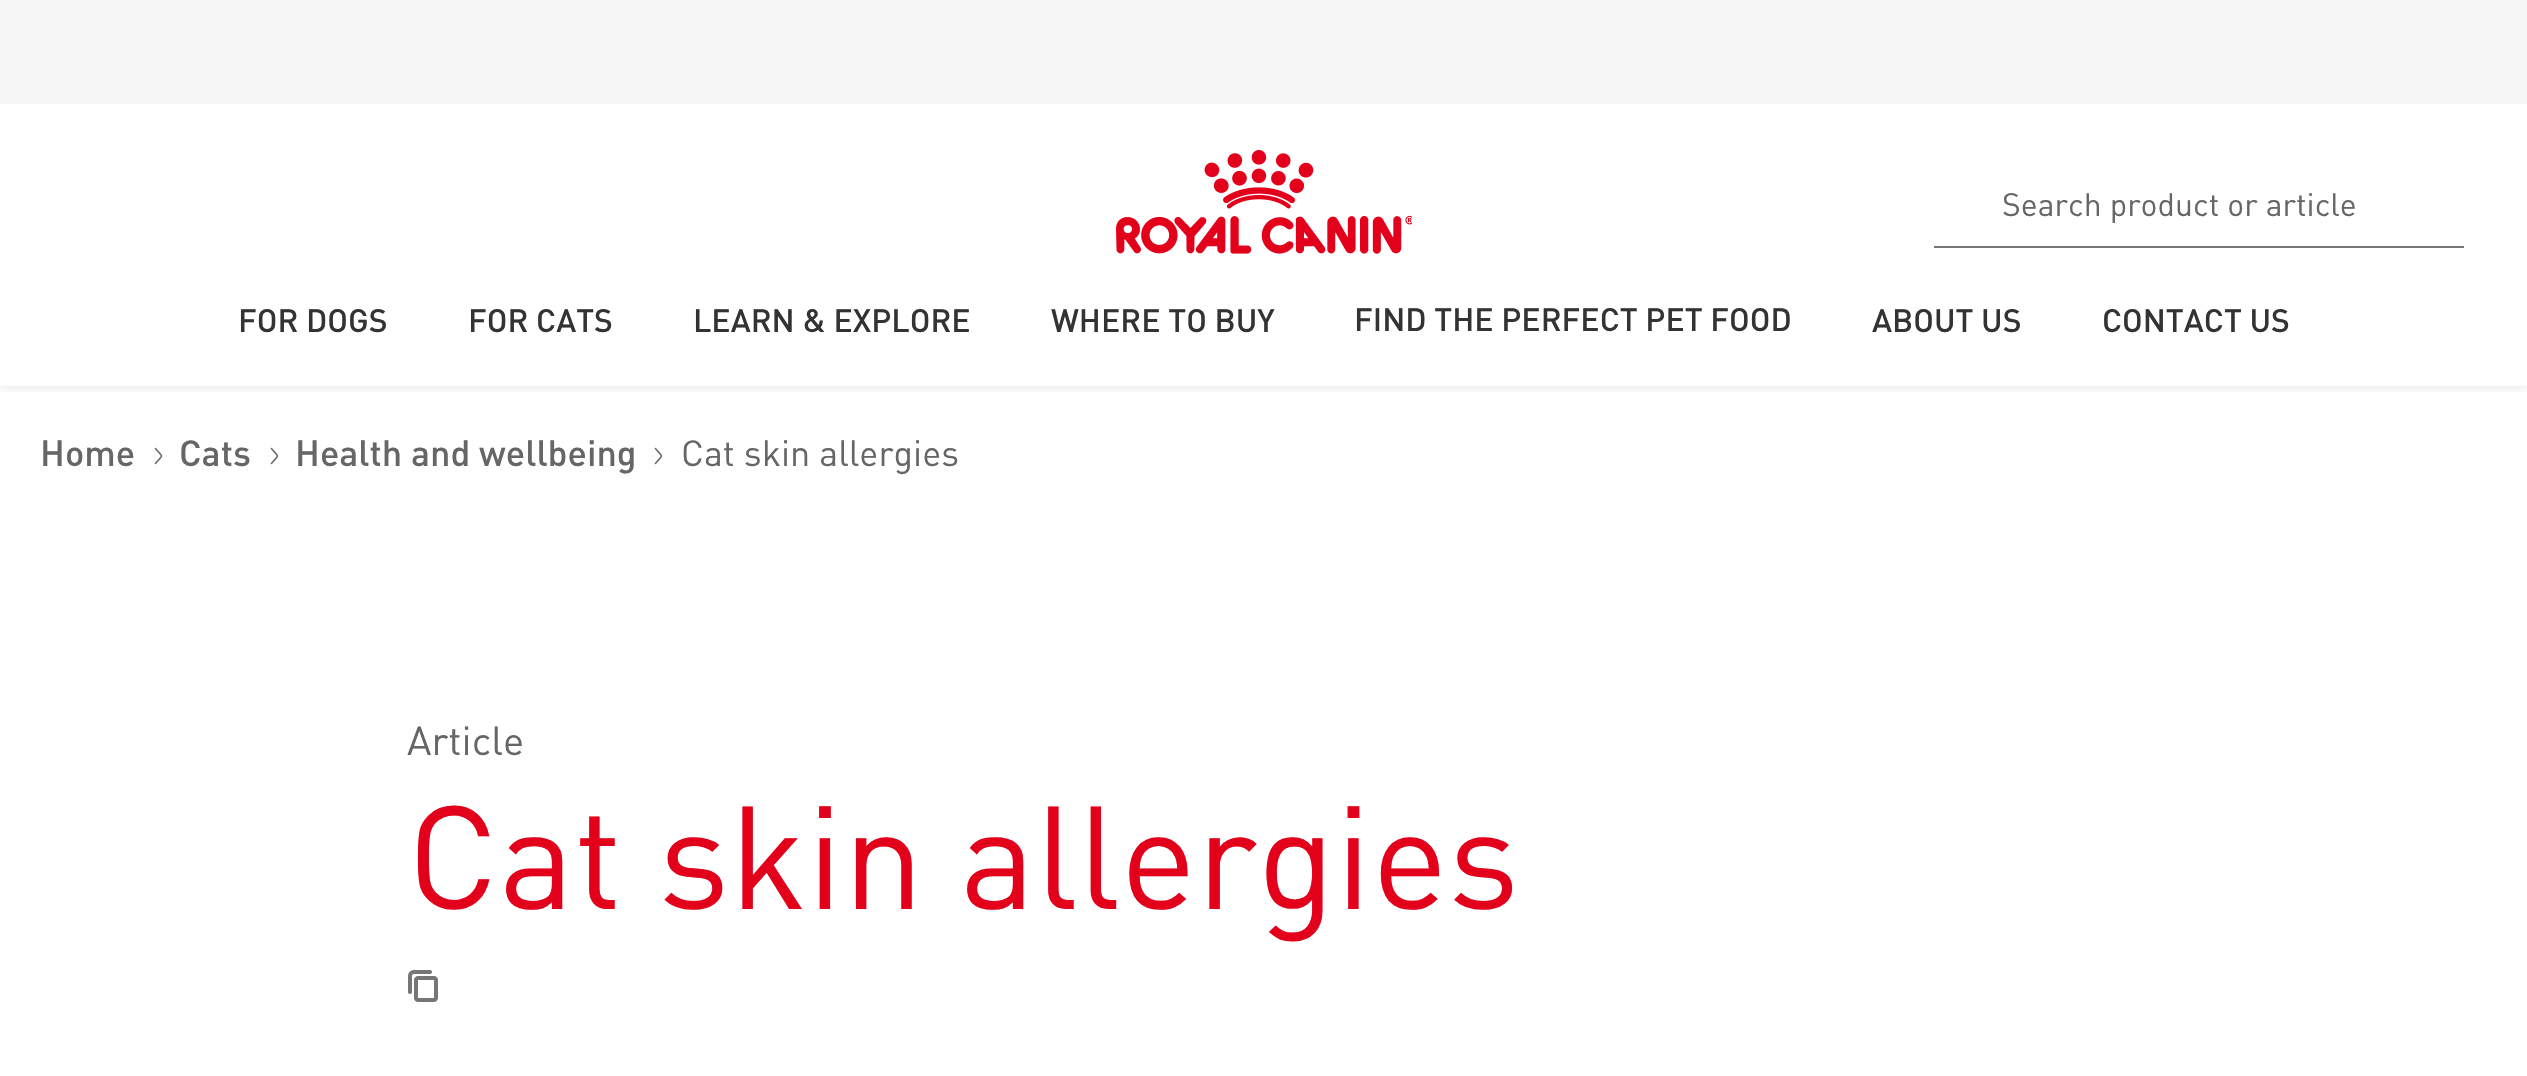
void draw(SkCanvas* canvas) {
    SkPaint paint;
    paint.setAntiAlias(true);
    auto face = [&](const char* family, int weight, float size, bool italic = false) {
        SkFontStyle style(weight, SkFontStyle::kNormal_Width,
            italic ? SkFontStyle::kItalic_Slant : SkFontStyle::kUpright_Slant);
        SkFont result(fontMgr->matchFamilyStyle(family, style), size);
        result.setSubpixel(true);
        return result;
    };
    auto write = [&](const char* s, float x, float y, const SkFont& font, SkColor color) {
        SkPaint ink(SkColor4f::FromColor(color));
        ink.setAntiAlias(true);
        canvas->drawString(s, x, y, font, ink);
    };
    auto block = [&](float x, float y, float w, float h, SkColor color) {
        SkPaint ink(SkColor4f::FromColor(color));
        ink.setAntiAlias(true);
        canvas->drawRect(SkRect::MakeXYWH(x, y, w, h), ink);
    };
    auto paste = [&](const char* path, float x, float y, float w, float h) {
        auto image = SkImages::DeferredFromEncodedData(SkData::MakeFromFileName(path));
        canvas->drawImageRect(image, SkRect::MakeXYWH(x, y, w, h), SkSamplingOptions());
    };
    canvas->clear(SK_ColorWHITE);
    canvas->save();
    canvas->clipRect(SkRect::MakeXYWH(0, 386, 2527, 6));
    paint.setColor(SkColorSetARGB(15, 0, 0, 0));
    paint.setMaskFilter(SkMaskFilter::MakeBlur(kNormal_SkBlurStyle, 4));
    canvas->drawRect(SkRect::MakeXYWH(0, 4, 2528, 386), paint);
    paint.setMaskFilter(nullptr);
    canvas->restore();
    block(0, 0, 2527, 104, SkColorSetRGB(246, 246, 246));
    paste("pic1.png", 1116, 150, 296, 104);
    block(1934, 246, 530, 2, SkColorSetRGB(118, 118, 118));
    auto kFont1 = face("DIN", 400, 32);
    write("Search product or article", 2002, 216, kFont1, SkColorSetRGB(102, 102, 102));
    auto kFont2 = face("DIN", 500, 32);
    write("FOR DOGS", 238, 332, kFont2, SkColorSetRGB(51, 51, 51));
    write("FOR CATS", 468, 332, kFont2, SkColorSetRGB(51, 51, 51));
    write("LEARN & EXPLORE", 693, 332, kFont2, SkColorSetRGB(51, 51, 51));
    write("WHERE TO BUY", 1051, 332, kFont2, SkColorSetRGB(51, 51, 51));
    write("FIND THE PERFECT PET FOOD", 1354, 331, kFont2, SkColorSetRGB(51, 51, 51));
    write("ABOUT US", 1872, 332, kFont2, SkColorSetRGB(51, 51, 51));
    write("CONTACT US", 2102, 332, kFont2, SkColorSetRGB(51, 51, 51));
    auto kFont3 = face("DIN", 500, 36);
    write("Home", 40, 466, kFont3, SkColorSetRGB(102, 102, 102));
    paste("pic2.png", 154, 447, 9, 18);
    write("Cats", 179, 466, kFont3, SkColorSetRGB(102, 102, 102));
    paste("pic2.png", 270, 447, 9, 18);
    write("Health and wellbeing", 295, 466, kFont3, SkColorSetRGB(102, 102, 102));
    paste("pic2.png", 654, 447, 9, 18);
    auto kFont4 = face("DIN", 400, 36);
    write("Cat skin allergies", 681, 466, kFont4, SkColorSetRGB(102, 102, 102));
    auto kFont5 = face("DIN", 400, 40);
    write("Article", 407, 755, kFont5, SkColorSetRGB(102, 102, 102));
    auto kFont6 = face("DIN", 400, 144);
    write("Cat skin allergies", 407, 909, kFont6, SkColorSetRGB(226, 0, 26));
    paste("pic3.png", 408, 970, 30, 32);
}
